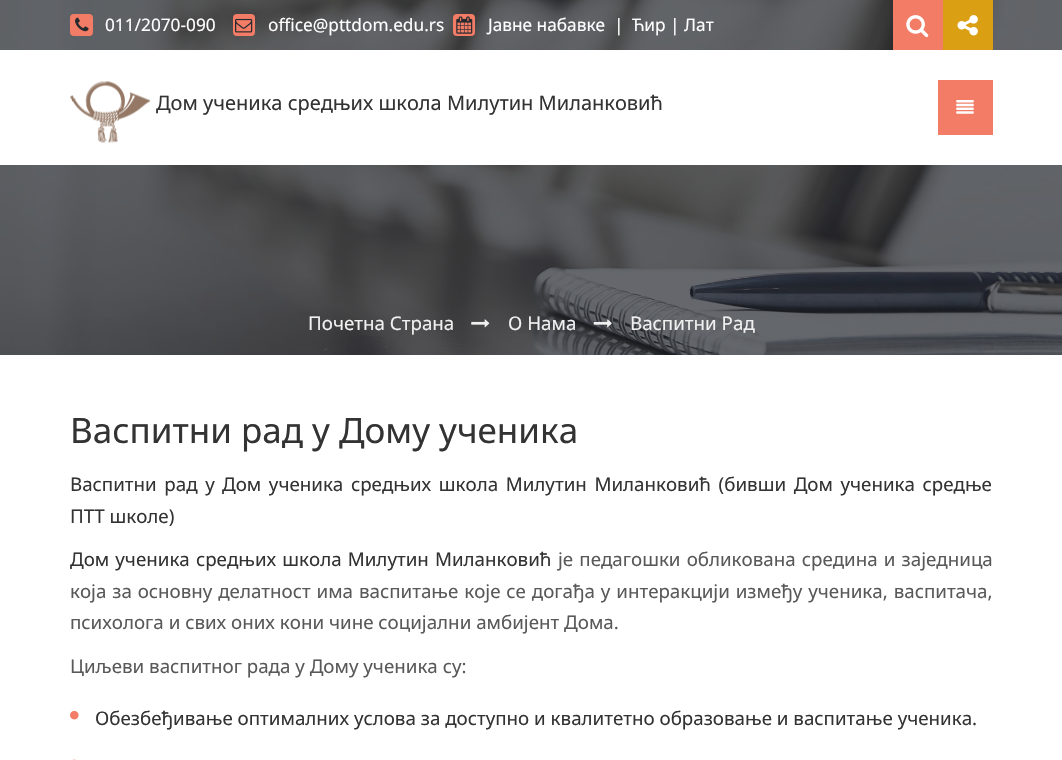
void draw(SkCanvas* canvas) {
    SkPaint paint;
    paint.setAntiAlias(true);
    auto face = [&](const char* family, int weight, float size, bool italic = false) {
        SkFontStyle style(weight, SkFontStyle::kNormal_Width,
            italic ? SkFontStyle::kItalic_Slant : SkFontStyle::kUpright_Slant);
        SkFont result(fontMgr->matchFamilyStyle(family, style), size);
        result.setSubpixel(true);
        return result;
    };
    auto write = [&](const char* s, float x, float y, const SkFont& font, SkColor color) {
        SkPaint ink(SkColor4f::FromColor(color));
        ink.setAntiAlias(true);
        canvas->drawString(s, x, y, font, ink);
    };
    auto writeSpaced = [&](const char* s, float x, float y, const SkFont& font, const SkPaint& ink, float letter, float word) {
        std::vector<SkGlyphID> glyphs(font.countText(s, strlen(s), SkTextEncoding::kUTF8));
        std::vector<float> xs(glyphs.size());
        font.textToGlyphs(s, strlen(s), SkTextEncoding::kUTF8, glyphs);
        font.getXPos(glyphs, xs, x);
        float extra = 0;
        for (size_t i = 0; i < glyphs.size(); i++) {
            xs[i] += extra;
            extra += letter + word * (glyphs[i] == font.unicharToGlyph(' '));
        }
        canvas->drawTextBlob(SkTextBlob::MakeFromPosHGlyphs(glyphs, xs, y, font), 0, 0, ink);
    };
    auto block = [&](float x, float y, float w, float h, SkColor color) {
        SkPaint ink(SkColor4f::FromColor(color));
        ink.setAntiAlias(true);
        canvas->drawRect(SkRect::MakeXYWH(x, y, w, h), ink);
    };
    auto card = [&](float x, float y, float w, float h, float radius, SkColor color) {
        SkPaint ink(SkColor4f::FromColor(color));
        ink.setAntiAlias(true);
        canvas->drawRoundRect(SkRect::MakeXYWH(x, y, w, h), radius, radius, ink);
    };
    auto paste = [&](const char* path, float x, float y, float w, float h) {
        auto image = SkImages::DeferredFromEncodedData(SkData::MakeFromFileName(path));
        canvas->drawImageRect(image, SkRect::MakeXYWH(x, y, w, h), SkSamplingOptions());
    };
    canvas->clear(SK_ColorWHITE);
    paste("pic1.png", 0, 0, 1062, 355);
    card(70, 14, 23, 22, 4, SkColorSetRGB(242, 124, 102));
    paste("pic2.png", 75, 17, 14, 15);
    auto kFont1 = face("Noto Sans", 400, 17.25f);
    write("011/2070-090", 105, 31, kFont1, SK_ColorWHITE);
    card(233, 14, 22, 22, 4, SkColorSetRGB(242, 124, 102));
    paste("pic3.png", 235, 18, 18, 15);
    write("office@pttdom.edu.rs", 268, 31, kFont1, SK_ColorWHITE);
    card(453, 14, 22, 22, 4, SkColorSetRGB(242, 124, 102));
    paste("pic4.png", 456, 16, 17, 18);
    write("Јавне набавке", 488, 31, kFont1, SK_ColorWHITE);
    write("|", 614, 31, kFont1, SK_ColorWHITE);
    write("Ћир | Лат", 632, 31, kFont1, SK_ColorWHITE);
    block(893, 0, 50, 50, SkColorSetRGB(242, 124, 102));
    paste("pic5.png", 906, 15, 23, 23);
    block(943, 0, 50, 50, SkColorSetRGB(219, 159, 20));
    paste("pic6.png", 957, 15, 21, 21);
    block(0, 50, 1062, 115, SK_ColorWHITE);
    paste("pic7.png", 70, 81, 80, 62);
    auto kFont2 = face("Noto Sans", 400, 20);
    write("Дом ученика средњих школа Милутин Миланковић", 156, 110, kFont2, SkColorSetRGB(51, 51, 51));
    block(938, 80, 55, 55, SkColorSetRGB(242, 124, 102));
    paste("pic8.png", 956, 100, 18, 14);
    auto kFont3 = face("Noto Sans", 400, 18.75f);
    write("Почетна Страна", 308, 330, kFont3, SkColorSetRGB(240, 240, 240));
    paste("pic9.png", 471, 319, 19, 9);
    write("О Нама", 508, 330, kFont3, SkColorSetRGB(240, 240, 240));
    paste("pic10.png", 593, 319, 19, 9);
    write("Васпитни Рад", 630, 330, kFont3, SkColorSetRGB(240, 240, 240));
    auto kFont4 = face("Noto Sans", 400, 35);
    write("Васпитни рад у Дому ученика", 70, 443, kFont4, SkColorSetRGB(51, 51, 51));
    paint.setColor(SkColorSetRGB(51, 51, 51));
    writeSpaced("Васпитни рад у", 70, 491, kFont3, paint, 0, 2.75f);
    writeSpaced("Дом ученика средњих школа Милутин Миланковић (бивши Дом ученика средње", 222, 491, kFont3, paint, 0, 2.75f);
    write("ПТТ школе)", 70, 523, kFont3, SkColorSetRGB(51, 51, 51));
    writeSpaced("Дом ученика средњих школа Милутин Миланковић", 70, 566, kFont3, paint, 0, 1.25f);
    paint.setColor(SkColorSetRGB(89, 89, 89));
    writeSpaced("је педагошки обликована средина и заједница", 558, 566, kFont3, paint, 0, 1.25f);
    writeSpaced("која за основну делатност има васпитање које се догађа у интеракцији између ученика, васпитача,", 70, 598, kFont3, paint, 0, 1);
    write("психолога и свих оних кони чине социјални амбијент Дома.", 70, 629, kFont3, SkColorSetRGB(89, 89, 89));
    write("Циљеви васпитног рада у Дому ученика су:", 70, 673, kFont3, SkColorSetRGB(89, 89, 89));
    paste("pic11.png", 70, 710, 9, 10);
    write("Обезбеђивање оптималних услова за доступно и квалитетно образовање и васпитање ученика.", 95, 725, kFont3, SkColorSetRGB(51, 51, 51));
    paste("pic12.png", 72, 759, 4, 1);
}
